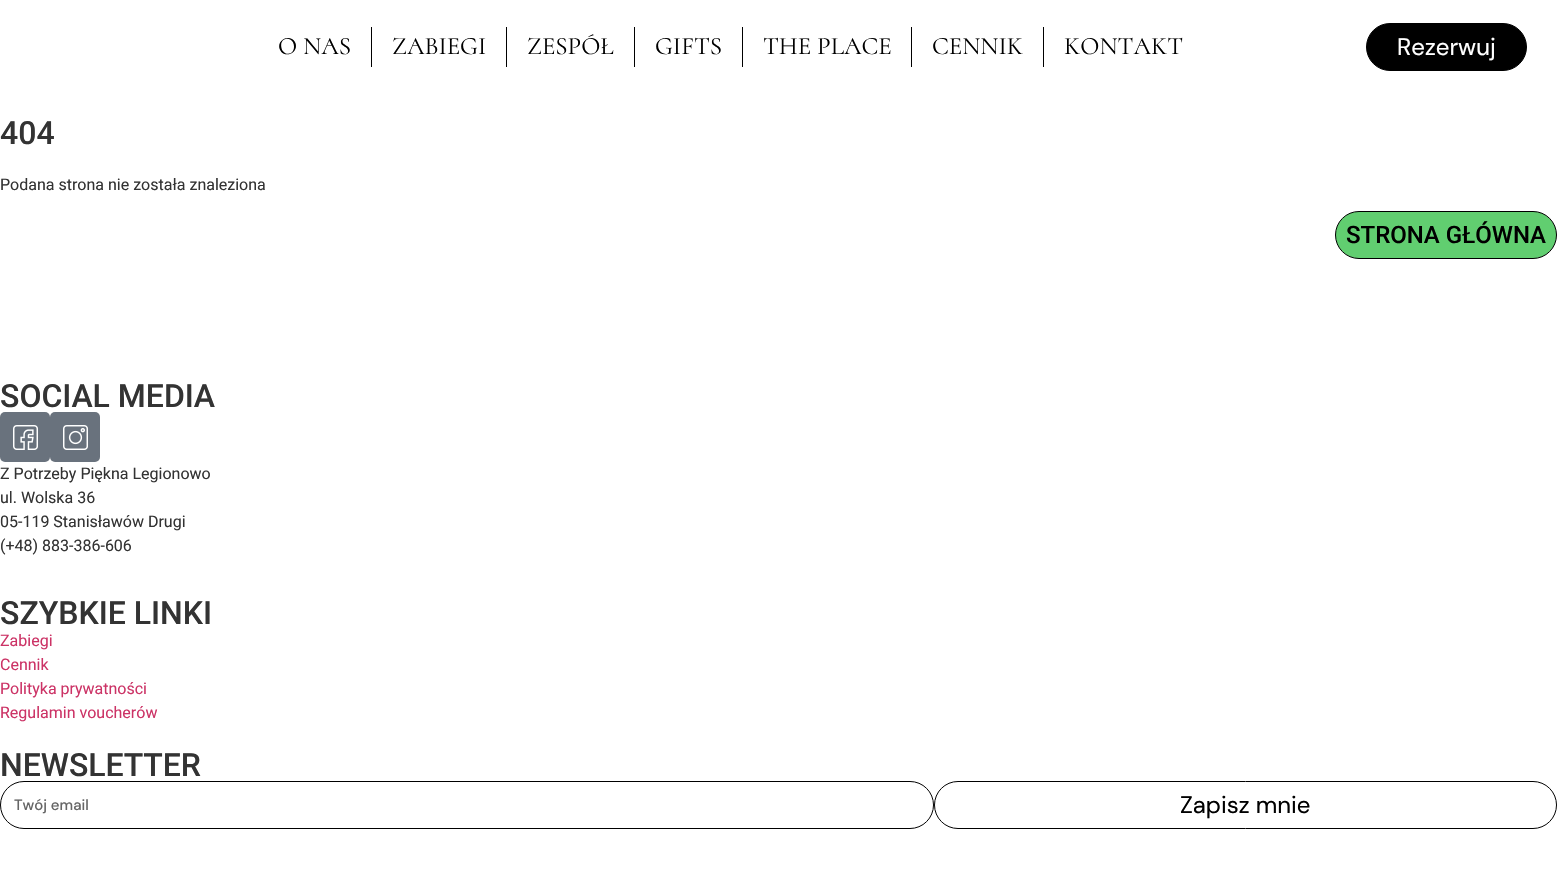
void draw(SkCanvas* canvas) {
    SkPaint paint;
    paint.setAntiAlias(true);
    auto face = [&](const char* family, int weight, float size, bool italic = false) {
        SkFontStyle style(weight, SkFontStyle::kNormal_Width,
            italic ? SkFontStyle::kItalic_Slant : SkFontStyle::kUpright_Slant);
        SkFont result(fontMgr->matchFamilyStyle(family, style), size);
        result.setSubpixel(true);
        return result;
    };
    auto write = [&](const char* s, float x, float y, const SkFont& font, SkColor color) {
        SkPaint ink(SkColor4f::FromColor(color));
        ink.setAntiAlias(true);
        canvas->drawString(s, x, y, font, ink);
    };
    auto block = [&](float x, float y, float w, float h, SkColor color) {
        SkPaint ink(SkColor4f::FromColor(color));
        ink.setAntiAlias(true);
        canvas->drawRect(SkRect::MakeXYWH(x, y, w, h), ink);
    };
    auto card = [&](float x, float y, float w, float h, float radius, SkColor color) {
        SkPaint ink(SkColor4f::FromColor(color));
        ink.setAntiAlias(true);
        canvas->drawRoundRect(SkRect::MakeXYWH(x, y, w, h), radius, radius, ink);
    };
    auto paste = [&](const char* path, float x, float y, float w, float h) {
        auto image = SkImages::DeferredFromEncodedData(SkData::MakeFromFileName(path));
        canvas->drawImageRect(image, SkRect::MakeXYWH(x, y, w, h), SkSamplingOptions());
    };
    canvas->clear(SK_ColorWHITE);
    auto kFont1 = face("Cormorant", 400, 25);
    write("O NAS", 278, 54, kFont1, SK_ColorBLACK);
    block(371, 27, 1, 40, SK_ColorBLACK);
    write("ZABIEGI", 392, 54, kFont1, SK_ColorBLACK);
    block(506, 27, 1, 40, SK_ColorBLACK);
    write("ZESPÓŁ", 527, 54, kFont1, SK_ColorBLACK);
    block(634, 27, 1, 40, SK_ColorBLACK);
    write("GIFTS", 655, 54, kFont1, SK_ColorBLACK);
    block(742, 27, 1, 40, SK_ColorBLACK);
    write("THE PLACE", 763, 54, kFont1, SK_ColorBLACK);
    block(911, 27, 1, 40, SK_ColorBLACK);
    write("CENNIK", 932, 54, kFont1, SK_ColorBLACK);
    block(1043, 27, 1, 40, SK_ColorBLACK);
    write("KONTAKT", 1064, 54, kFont1, SK_ColorBLACK);
    paint.setColor(SK_ColorBLACK);
    canvas->drawRoundRect(SkRect::MakeXYWH(1366.5f, 23.5f, 160, 47), 23.5f, 23.5f, paint);
    paint.setStyle(SkPaint::kStroke_Style);
    paint.setStrokeWidth(1);
    canvas->drawRoundRect(SkRect::MakeXYWH(1366.5f, 23.5f, 160, 47), 23.5f, 23.5f, paint);
    auto kFont2 = face("DM Sans", 400, 24);
    write("Rezerwuj", 1397, 55, kFont2, SK_ColorWHITE);
    auto kFont3 = face("Roboto", 500, 32);
    write("404", 0, 144, kFont3, SkColorSetRGB(51, 51, 51));
    auto kFont4 = face("Roboto", 400, 16);
    write("Podana strona nie została znaleziona", 0, 190, kFont4, SkColorSetRGB(51, 51, 51));
    paint.setStyle(SkPaint::kFill_Style);
    paint.setColor(SkColorSetRGB(97, 206, 112));
    canvas->drawRoundRect(SkRect::MakeXYWH(1335.5f, 211.5f, 221, 47), 23.5f, 23.5f, paint);
    paint.setStyle(SkPaint::kStroke_Style);
    paint.setColor(SK_ColorBLACK);
    canvas->drawRoundRect(SkRect::MakeXYWH(1335.5f, 211.5f, 221, 47), 23.5f, 23.5f, paint);
    auto kFont5 = face("Roboto", 500, 24);
    write("STRONA GŁÓWNA", 1346, 243, kFont5, SK_ColorBLACK);
    write("SOCIAL MEDIA", 0, 407, kFont3, SkColorSetRGB(51, 51, 51));
    card(0, 412, 50, 50, 5, SkColorSetRGB(105, 114, 125));
    paste("pic1.png", 13, 425, 25, 25);
    card(50, 412, 50, 50, 5, SkColorSetRGB(105, 114, 125));
    paste("pic2.png", 63, 425, 25, 25);
    write("Z Potrzeby Piękna Legionowo", 0, 479, kFont4, SkColorSetRGB(51, 51, 51));
    write("ul. Wolska 36", 0, 503, kFont4, SkColorSetRGB(51, 51, 51));
    write("05-119 Stanisławów Drugi", 0, 527, kFont4, SkColorSetRGB(51, 51, 51));
    write("(+48) 883-386-606", 0, 551, kFont4, SkColorSetRGB(51, 51, 51));
    write("SZYBKIE LINKI", 0, 624, kFont3, SkColorSetRGB(51, 51, 51));
    write("Zabiegi", 0, 646, kFont4, SkColorSetRGB(204, 51, 102));
    write("Cennik", 0, 670, kFont4, SkColorSetRGB(204, 51, 102));
    write("Polityka prywatności", 0, 694, kFont4, SkColorSetRGB(204, 51, 102));
    write("Regulamin voucherów", 0, 718, kFont4, SkColorSetRGB(204, 51, 102));
    write("NEWSLETTER", 0, 776, kFont3, SkColorSetRGB(51, 51, 51));
    canvas->drawRoundRect(SkRect::MakeXYWH(0.5f, 781.5f, 933, 47), 23.5f, 23.5f, paint);
    auto kFont6 = face("DM Sans", 500, 15);
    write("Twój email", 14, 810, kFont6, SkColorSetRGB(102, 102, 102));
    canvas->drawRoundRect(SkRect::MakeXYWH(934.5f, 781.5f, 622, 47), 23.5f, 23.5f, paint);
    write("Zapisz mnie", 1180, 813, kFont2, SK_ColorBLACK);
}
